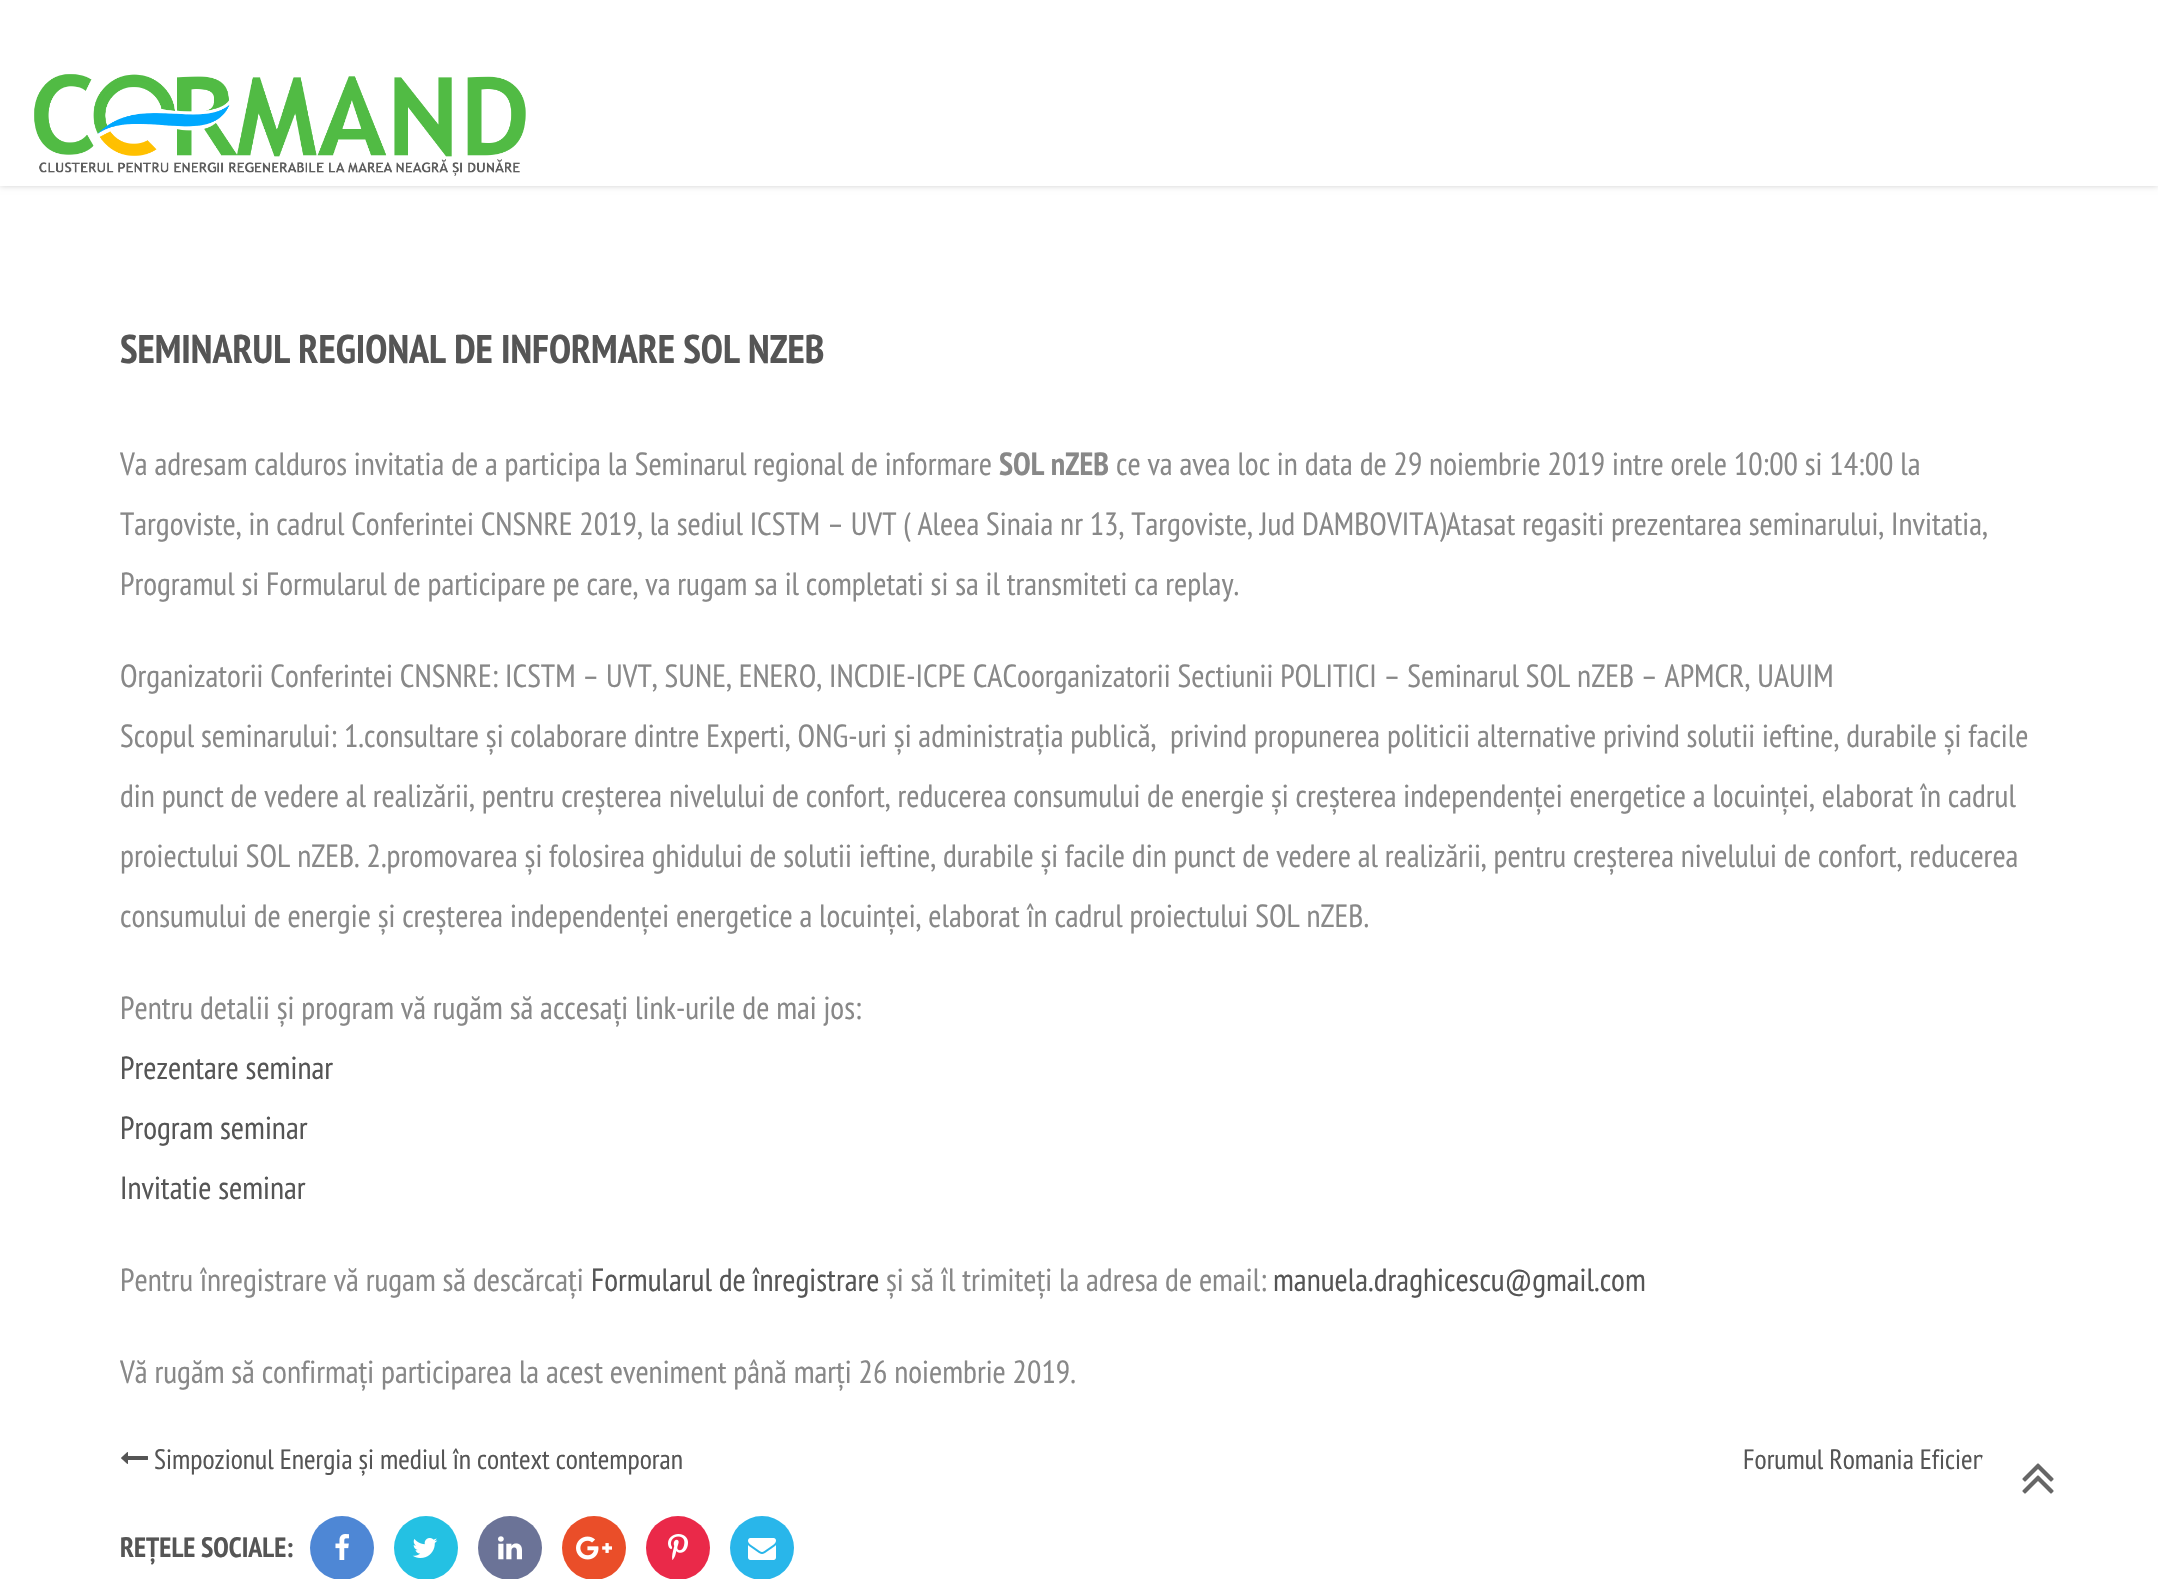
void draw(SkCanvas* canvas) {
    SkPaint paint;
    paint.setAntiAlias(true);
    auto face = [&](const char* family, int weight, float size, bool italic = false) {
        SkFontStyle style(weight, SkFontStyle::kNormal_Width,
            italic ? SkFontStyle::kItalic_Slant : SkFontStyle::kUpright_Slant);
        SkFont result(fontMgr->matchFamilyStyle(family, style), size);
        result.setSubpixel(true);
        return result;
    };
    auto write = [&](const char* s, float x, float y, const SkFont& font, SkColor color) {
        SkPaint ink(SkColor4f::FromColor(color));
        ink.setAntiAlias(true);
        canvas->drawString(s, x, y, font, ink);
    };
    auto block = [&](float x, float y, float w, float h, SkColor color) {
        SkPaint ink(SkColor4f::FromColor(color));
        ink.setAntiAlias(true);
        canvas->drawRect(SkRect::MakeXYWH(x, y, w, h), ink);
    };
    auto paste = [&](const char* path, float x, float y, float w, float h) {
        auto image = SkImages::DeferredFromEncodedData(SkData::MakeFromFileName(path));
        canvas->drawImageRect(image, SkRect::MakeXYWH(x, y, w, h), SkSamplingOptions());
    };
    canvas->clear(SK_ColorWHITE);
    paint.setColor(SkColorSetARGB(46, 0, 0, 0));
    paint.setMaskFilter(SkMaskFilter::MakeBlur(kNormal_SkBlurStyle, 3));
    canvas->drawRect(SkRect::MakeXYWH(0, 0, 2158, 186), paint);
    paint.setMaskFilter(nullptr);
    block(0, 0, 2158, 186, SK_ColorWHITE);
    paste("pic1.png", 34, 74, 492, 102);
    auto kFont1 = face("PT Sans Narrow", 700, 40);
    write("SEMINARUL REGIONAL DE INFORMARE SOL NZEB", 120, 363, kFont1, SkColorSetRGB(85, 85, 85));
    auto kFont2 = face("PT Sans Narrow", 400, 32);
    write("Va adresam calduros invitatia de a participa la Seminarul regional de informare", 120, 475, kFont2, SkColorSetRGB(136, 136, 136));
    auto kFont3 = face("PT Sans Narrow", 700, 32);
    write("SOL nZEB", 999, 475, kFont3, SkColorSetRGB(136, 136, 136));
    write("ce va avea loc in data de 29 noiembrie 2019 intre orele 10:00 si 14:00 la", 1116, 475, kFont2, SkColorSetRGB(136, 136, 136));
    write("Targoviste, in cadrul Conferintei CNSNRE 2019, la sediul ICSTM – UVT ( Aleea Sinaia nr 13, Targoviste, Jud DAMBOVITA)Atasat regasiti prezentarea seminarului, Invitatia,", 120, 535, kFont2, SkColorSetRGB(136, 136, 136));
    write("Programul si Formularul de participare pe care, va rugam sa il completati si sa il transmiteti ca replay.", 120, 595, kFont2, SkColorSetRGB(136, 136, 136));
    write("Organizatorii Conferintei CNSNRE: ICSTM – UVT, SUNE, ENERO, INCDIE-ICPE CACoorganizatorii Sectiunii POLITICI – Seminarul SOL nZEB – APMCR, UAUIM", 120, 687, kFont2, SkColorSetRGB(136, 136, 136));
    write("Scopul seminarului: 1.consultare și colaborare dintre Experti, ONG-uri și administrația publică,  privind propunerea politicii alternative privind solutii ieftine, durabile și facile", 120, 747, kFont2, SkColorSetRGB(136, 136, 136));
    write("din punct de vedere al realizării, pentru creșterea nivelului de confort, reducerea consumului de energie și creșterea independenței energetice a locuinței, elaborat în cadrul", 120, 807, kFont2, SkColorSetRGB(136, 136, 136));
    write("proiectului SOL nZEB. 2.promovarea și folosirea ghidului de solutii ieftine, durabile și facile din punct de vedere al realizării, pentru creșterea nivelului de confort, reducerea", 120, 867, kFont2, SkColorSetRGB(136, 136, 136));
    write("consumului de energie și creșterea independenței energetice a locuinței, elaborat în cadrul proiectului SOL nZEB.", 120, 927, kFont2, SkColorSetRGB(136, 136, 136));
    write("Pentru detalii și program vă rugăm să accesați link-urile de mai jos:", 120, 1019, kFont2, SkColorSetRGB(136, 136, 136));
    write("Prezentare seminar", 120, 1079, kFont2, SkColorSetRGB(85, 85, 85));
    write("Program seminar", 120, 1139, kFont2, SkColorSetRGB(85, 85, 85));
    write("Invitatie seminar", 120, 1199, kFont2, SkColorSetRGB(85, 85, 85));
    write("Pentru înregistrare vă rugam să descărcați", 120, 1291, kFont2, SkColorSetRGB(136, 136, 136));
    write("Formularul de înregistrare", 591, 1291, kFont2, SkColorSetRGB(85, 85, 85));
    write("și să îl trimiteți la adresa de email:", 886, 1291, kFont2, SkColorSetRGB(136, 136, 136));
    write("manuela.draghicescu@gmail.com", 1273, 1291, kFont2, SkColorSetRGB(85, 85, 85));
    write("Vă rugăm să confirmați participarea la acest eveniment până marți 26 noiembrie 2019.", 120, 1383, kFont2, SkColorSetRGB(136, 136, 136));
    paste("pic2.png", 121, 1452, 27, 12);
    auto kFont4 = face("PT Sans Narrow", 400, 28);
    write("Simpozionul Energia și mediul în context contemporan", 154, 1469, kFont4, SkColorSetRGB(85, 85, 85));
    write("Forumul Romania Eficien", 1743, 1469, kFont4, SkColorSetRGB(85, 85, 85));
    auto kFont5 = face("PT Sans Narrow", 700, 28);
    write("REȚELE SOCIALE:", 120, 1557, kFont5, SkColorSetRGB(85, 85, 85));
    paint.setColor(SkColorSetRGB(78, 135, 213));
    canvas->drawCircle(342, 1548, 32, paint);
    paste("pic3.png", 335, 1534, 14, 26);
    paint.setColor(SkColorSetRGB(36, 193, 227));
    canvas->drawCircle(426, 1548, 32, paint);
    paste("pic4.png", 412, 1538, 26, 20);
    paint.setColor(SkColorSetRGB(107, 115, 151));
    canvas->drawCircle(510, 1548, 32, paint);
    paste("pic5.png", 498, 1536, 24, 24);
    paint.setColor(SkColorSetRGB(234, 78, 41));
    canvas->drawCircle(594, 1548, 32, paint);
    paste("pic6.png", 576, 1536, 36, 24);
    paint.setColor(SkColorSetRGB(234, 41, 73));
    canvas->drawCircle(678, 1548, 32, paint);
    paste("pic7.png", 668, 1534, 20, 26);
    paint.setColor(SkColorSetRGB(41, 182, 234));
    canvas->drawCircle(762, 1548, 32, paint);
    paste("pic8.png", 748, 1538, 28, 22);
    paint.setColor(SK_ColorWHITE);
    canvas->drawCircle(2038, 1480, 59, paint);
    paint.setStyle(SkPaint::kStroke_Style);
    paint.setStrokeWidth(2);
    canvas->drawCircle(2038, 1480, 59, paint);
    paste("pic9.png", 2022, 1463, 32, 31);
}
